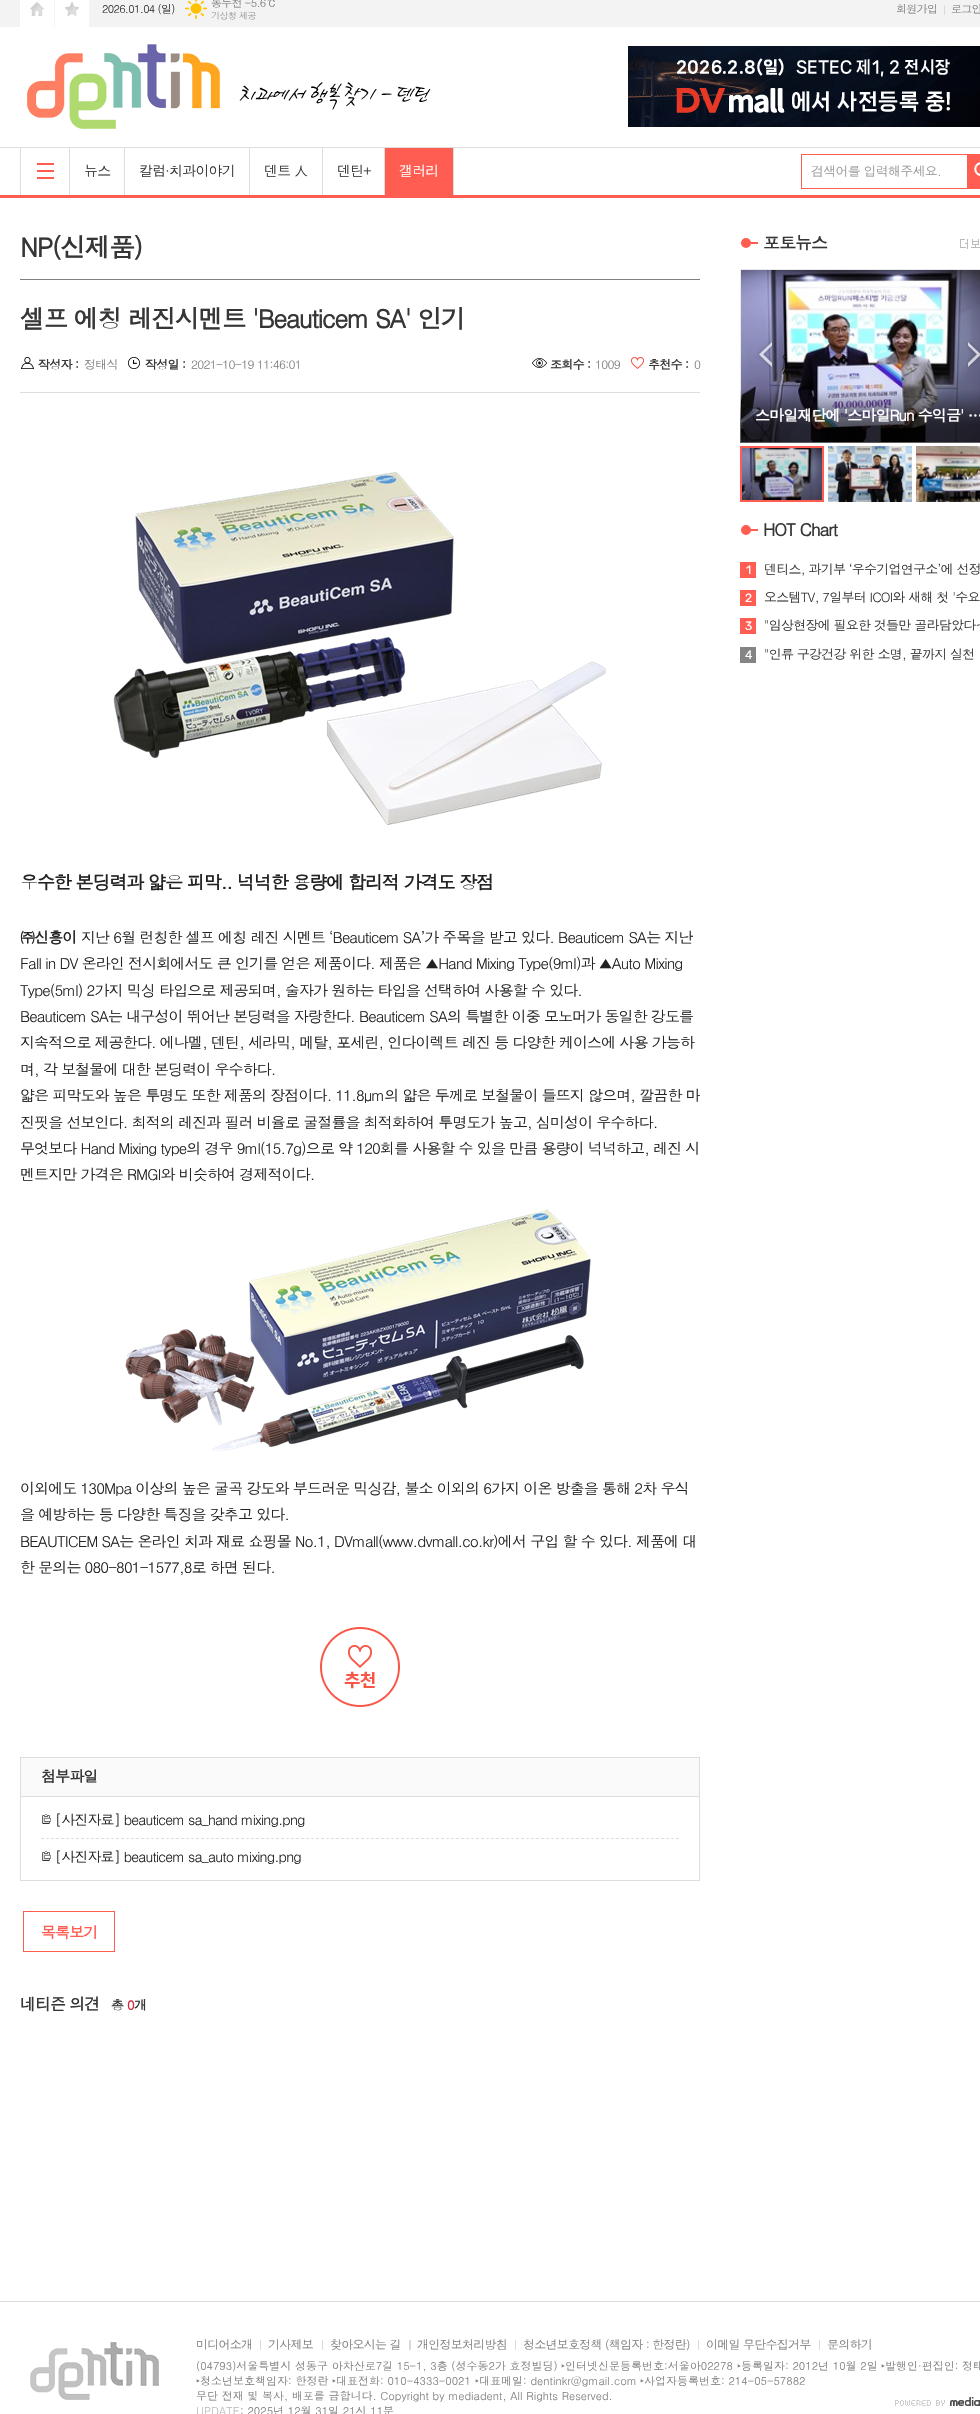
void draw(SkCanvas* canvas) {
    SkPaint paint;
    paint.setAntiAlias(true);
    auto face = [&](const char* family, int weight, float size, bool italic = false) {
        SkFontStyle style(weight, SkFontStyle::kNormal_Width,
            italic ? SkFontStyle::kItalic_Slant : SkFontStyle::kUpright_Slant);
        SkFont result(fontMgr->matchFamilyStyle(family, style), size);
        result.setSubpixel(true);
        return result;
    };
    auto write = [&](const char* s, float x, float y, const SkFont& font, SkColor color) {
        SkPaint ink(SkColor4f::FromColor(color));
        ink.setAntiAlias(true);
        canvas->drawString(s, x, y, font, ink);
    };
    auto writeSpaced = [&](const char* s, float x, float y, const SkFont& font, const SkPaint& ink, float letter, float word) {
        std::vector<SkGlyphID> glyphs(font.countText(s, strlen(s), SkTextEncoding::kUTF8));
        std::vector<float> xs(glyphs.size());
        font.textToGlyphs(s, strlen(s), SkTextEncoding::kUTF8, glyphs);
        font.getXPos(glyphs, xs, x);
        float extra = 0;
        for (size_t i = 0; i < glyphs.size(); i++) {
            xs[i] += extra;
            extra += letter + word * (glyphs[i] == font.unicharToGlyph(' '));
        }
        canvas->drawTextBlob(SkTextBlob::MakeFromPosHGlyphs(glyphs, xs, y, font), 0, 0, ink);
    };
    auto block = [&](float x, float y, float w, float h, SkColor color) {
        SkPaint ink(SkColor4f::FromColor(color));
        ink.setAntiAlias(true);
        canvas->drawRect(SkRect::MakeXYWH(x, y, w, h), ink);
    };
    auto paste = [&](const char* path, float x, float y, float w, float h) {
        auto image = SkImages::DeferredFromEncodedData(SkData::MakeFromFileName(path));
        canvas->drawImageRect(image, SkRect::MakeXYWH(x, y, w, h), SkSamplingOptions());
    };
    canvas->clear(SK_ColorWHITE);
    block(0, 0, 980, 27, SkColorSetRGB(243, 243, 243));
    block(20, 0, 34, 27, SK_ColorWHITE);
    paste("pic1.png", 30, 2, 14, 14);
    block(55, 0, 34, 27, SK_ColorWHITE);
    paste("pic2.png", 65, 2, 14, 14);
    auto kFont1 = face("Dotum", 400, 11);
    paint.setColor(SkColorSetRGB(54, 54, 54));
    writeSpaced("2026.01.04 (일)", 102, 13, kFont1, paint, -0.7f, 0);
    paste("pic3.png", 185, 0, 22, 19);
    paint.setColor(SkColorSetRGB(128, 128, 128));
    writeSpaced("동두천 -5.6℃", 211, 7, kFont1, paint, -0.7f, 0);
    auto kFont2 = face("Dotum", 400, 9);
    paint.setColor(SkColorSetRGB(153, 153, 153));
    writeSpaced("기상청 제공", 211, 19, kFont2, paint, -0.5f, 0);
    paint.setColor(SkColorSetRGB(128, 128, 128));
    writeSpaced("회원가입", 896, 13, kFont1, paint, -0.7f, 0);
    block(944, 5, 1, 10, SkColorSetRGB(219, 219, 219));
    writeSpaced("로그인", 951, 13, kFont1, paint, -0.7f, 0);
    paste("pic4.png", 27, 44, 404, 85);
    paste("pic5.png", 628, 46, 352, 81);
    block(0, 147, 980, 1, SkColorSetRGB(222, 222, 222));
    block(0, 195, 980, 3, SkColorSetRGB(255, 93, 82));
    block(69, 148, 1, 47, SkColorSetRGB(222, 222, 222));
    block(20, 148, 1, 47, SkColorSetRGB(222, 222, 222));
    block(37, 170, 17, 2, SkColorSetRGB(255, 93, 82));
    block(37, 163, 17, 2, SkColorSetRGB(255, 93, 82));
    block(37, 177, 17, 2, SkColorSetRGB(255, 93, 82));
    block(124, 148, 1, 47, SkColorSetRGB(222, 222, 222));
    auto kFont3 = face("Dotum", 400, 14);
    paint.setColor(SkColorSetRGB(54, 54, 54));
    writeSpaced("뉴스", 84, 176, kFont3, paint, -0.85f, 0);
    block(249, 148, 1, 47, SkColorSetRGB(222, 222, 222));
    writeSpaced("칼럼·치과이야기", 139, 176, kFont3, paint, -0.85f, 0);
    block(322, 148, 1, 47, SkColorSetRGB(222, 222, 222));
    writeSpaced("덴트 人", 264, 176, kFont3, paint, -0.85f, 0);
    writeSpaced("덴틴+", 337, 176, kFont3, paint, -0.85f, 0);
    block(385, 148, 68, 47, SkColorSetRGB(255, 93, 82));
    block(453, 148, 1, 47, SkColorSetRGB(222, 222, 222));
    block(384, 148, 1, 47, SkColorSetRGB(222, 222, 222));
    paint.setColor(SK_ColorWHITE);
    writeSpaced("갤러리", 399, 176, kFont3, paint, -0.85f, 0);
    paint.setStyle(SkPaint::kStroke_Style);
    paint.setStrokeWidth(1);
    paint.setColor(SkColorSetRGB(255, 93, 82));
    canvas->drawRect(SkRect::MakeXYWH(801.5f, 154.5f, 166, 34), paint);
    block(968, 154, 12, 35, SkColorSetRGB(255, 93, 82));
    paste("pic6.png", 974, 162, 6, 14);
    auto kFont4 = face("Dotum", 400, 13);
    paint.setStyle(SkPaint::kFill_Style);
    paint.setColor(SkColorSetRGB(153, 153, 153));
    writeSpaced("검색어를 입력해주세요.", 811, 176, kFont4, paint, -0.75f, 0);
    auto kFont5 = face("Dotum", 700, 26);
    paint.setColor(SkColorSetRGB(54, 54, 54));
    writeSpaced("NP(신제품)", 20, 257, kFont5, paint, -1.5f, 0);
    block(20, 1880, 680, 1, SkColorSetRGB(222, 222, 222));
    block(20, 279, 680, 1, SkColorSetRGB(128, 128, 128));
    auto kFont6 = face("Dotum", 700, 25);
    writeSpaced("셀프 에칭 레진시멘트 'Beauticem SA' 인기", 20, 328, kFont6, paint, -1.5f, 0);
    block(20, 392, 680, 1, SkColorSetRGB(222, 222, 222));
    paste("pic7.png", 21, 357, 13, 12);
    auto kFont7 = face("Dotum", 700, 12);
    writeSpaced("작성자 :", 38, 369, kFont7, paint, -0.75f, 0);
    auto kFont8 = face("Dotum", 400, 12);
    paint.setColor(SkColorSetRGB(128, 128, 128));
    writeSpaced("정태식", 84, 369, kFont8, paint, -0.75f, 0);
    paste("pic8.png", 128, 357, 12, 12);
    paint.setColor(SkColorSetRGB(54, 54, 54));
    writeSpaced("작성일 :", 145, 369, kFont7, paint, -0.75f, 0);
    paint.setColor(SkColorSetRGB(128, 128, 128));
    writeSpaced("2021-10-19 11:46:01", 191, 369, kFont8, paint, -0.75f, 0);
    paste("pic9.png", 532, 358, 15, 10);
    paint.setColor(SkColorSetRGB(54, 54, 54));
    writeSpaced("조회수 :", 550, 369, kFont7, paint, -0.75f, 0);
    paint.setColor(SkColorSetRGB(128, 128, 128));
    writeSpaced("1009", 595, 369, kFont8, paint, -0.75f, 0);
    paste("pic10.png", 631, 357, 13, 12);
    paint.setColor(SkColorSetRGB(54, 54, 54));
    writeSpaced("추천수 :", 648, 369, kFont7, paint, -0.75f, 0);
    paint.setColor(SkColorSetRGB(128, 128, 128));
    writeSpaced("0", 694, 369, kFont8, paint, -0.75f, 0);
    paste("pic11.png", 113, 471, 493, 354);
    auto kFont9 = face("Dotum", 700, 18);
    paint.setColor(SkColorSetRGB(34, 34, 34));
    writeSpaced("우수한 본딩력과 얇은 피막.. 넉넉한 용량에 합리적 가격도 장점", 20, 889, kFont9, paint, -1.1f, 0);
    auto kFont10 = face("Dotum", 700, 15);
    writeSpaced("㈜신흥이", 20, 943, kFont10, paint, -0.9f, 0);
    auto kFont11 = face("Dotum", 400, 15);
    writeSpaced("지난 6월 런칭한 셀프 에칭 레진 시멘트 ‘Beauticem SA’가 주목을 받고 있다. Beauticem SA는 지난", 81, 943, kFont11, paint, -0.9f, 0);
    writeSpaced("Fall in DV 온라인 전시회에서도 큰 인기를 얻은 제품이다. 제품은 ▲Hand Mixing Type(9ml)과 ▲Auto Mixing", 20, 969, kFont11, paint, -0.9f, 0);
    writeSpaced("Type(5ml) 2가지 믹싱 타입으로 제공되며, 술자가 원하는 타입을 선택하여 사용할 수 있다.", 20, 996, kFont11, paint, -0.9f, 0);
    writeSpaced("Beauticem SA는 내구성이 뛰어난 본딩력을 자랑한다. Beauticem SA의 특별한 이중 모노머가 동일한 강도를", 20, 1022, kFont11, paint, -0.9f, 0);
    writeSpaced("지속적으로 제공한다. 에나멜, 덴틴, 세라믹, 메탈, 포세린, 인다이렉트 레진 등 다양한 케이스에 사용 가능하", 20, 1048, kFont11, paint, -0.9f, 0);
    writeSpaced("며, 각 보철물에 대한 본딩력이 우수하다.", 20, 1075, kFont11, paint, -0.9f, 0);
    writeSpaced("얇은 피막도와 높은 투명도 또한 제품의 장점이다. 11.8μm의 얇은 두께로 보철물이 들뜨지 않으며, 깔끔한 마", 20, 1101, kFont11, paint, -0.9f, 0);
    writeSpaced("진핏을 선보인다. 최적의 레진과 필러 비율로 굴절률을 최적화하여 투명도가 높고, 심미성이 우수하다.", 20, 1128, kFont11, paint, -0.9f, 0);
    writeSpaced("무엇보다 Hand Mixing type의 경우 9ml(15.7g)으로 약 120회를 사용할 수 있을 만큼 용량이 넉넉하고, 레진 시", 20, 1154, kFont11, paint, -0.9f, 0);
    writeSpaced("멘트지만 가격은 RMGI와 비슷하여 경제적이다.", 20, 1180, kFont11, paint, -0.9f, 0);
    paste("pic12.png", 125, 1209, 466, 242);
    writeSpaced("이외에도 130Mpa 이상의 높은 굴곡 강도와 부드러운 믹싱감, 불소 이외의 6가지 이온 방출을 통해 2차 우식", 20, 1494, kFont11, paint, -0.9f, 0);
    writeSpaced("을 예방하는 등 다양한 특징을 갖추고 있다.", 20, 1520, kFont11, paint, -0.9f, 0);
    writeSpaced("BEAUTICEM SA는 온라인 치과 재료 쇼핑몰 No.1, DVmall(www.dvmall.co.kr)에서 구입 할 수 있다. 제품에 대", 20, 1547, kFont11, paint, -0.9f, 0);
    writeSpaced("한 문의는 080-801-1577,8로 하면 된다.", 20, 1573, kFont11, paint, -0.9f, 0);
    paste("pic13.png", 320, 1627, 80, 80);
    paint.setColor(SkColorSetRGB(250, 250, 250));
    canvas->drawRect(SkRect::MakeXYWH(20.5f, 1757.5f, 679, 39), paint);
    paint.setStyle(SkPaint::kStroke_Style);
    paint.setColor(SkColorSetRGB(222, 222, 222));
    canvas->drawRect(SkRect::MakeXYWH(20.5f, 1757.5f, 679, 39), paint);
    paint.setStyle(SkPaint::kFill_Style);
    paint.setColor(SkColorSetRGB(54, 54, 54));
    writeSpaced("첨부파일", 41, 1782, kFont10, paint, -0.9f, 0);
    block(699, 1796, 1, 84, SkColorSetRGB(222, 222, 222));
    block(20, 1796, 1, 84, SkColorSetRGB(222, 222, 222));
    paste("pic14.png", 42, 1814, 9, 10);
    paint.setColor(SkColorSetRGB(34, 34, 34));
    writeSpaced("[사진자료] beauticem sa_hand mixing.png", 55, 1825, kFont3, paint, -0.85f, 0);
    paint.setStyle(SkPaint::kStroke_Style);
    paint.setColor(SkColorSetRGB(222, 222, 222));
    paint.setPathEffect(SkDashPathEffect::Make({{3, 2}}, 0));
    canvas->drawPath(SkPathBuilder().moveTo(41, 1838.5f).lineTo(679, 1838.5f).detach(), paint);
    paint.setPathEffect(nullptr);
    paste("pic14.png", 42, 1851, 9, 10);
    paint.setStyle(SkPaint::kFill_Style);
    paint.setColor(SkColorSetRGB(34, 34, 34));
    writeSpaced("[사진자료] beauticem sa_auto mixing.png", 55, 1862, kFont3, paint, -0.85f, 0);
    paint.setStyle(SkPaint::kStroke_Style);
    paint.setColor(SkColorSetRGB(255, 93, 82));
    canvas->drawRect(SkRect::MakeXYWH(23.5f, 1911.5f, 91, 40), paint);
    paint.setStyle(SkPaint::kFill_Style);
    writeSpaced("목록보기", 41, 1938, kFont10, paint, -0.9f, 0);
    auto kFont12 = face("Dotum", 700, 16);
    paint.setColor(SkColorSetRGB(54, 54, 54));
    writeSpaced("네티즌 의견", 20, 2010, kFont12, paint, -1, 0);
    auto kFont13 = face("Dotum", 700, 13);
    writeSpaced("총", 111, 2010, kFont13, paint, -0.75f, 0);
    paint.setColor(SkColorSetRGB(212, 37, 62));
    writeSpaced("0", 127, 2010, kFont13, paint, -0.75f, 0);
    paint.setColor(SkColorSetRGB(54, 54, 54));
    writeSpaced("개", 134, 2010, kFont13, paint, -0.75f, 0);
    block(745, 242, 13, 2, SkColorSetRGB(255, 93, 82));
    paint.setColor(SkColorSetRGB(255, 93, 82));
    canvas->drawCircle(746, 243, 5, paint);
    auto kFont14 = face("Dotum", 700, 17);
    paint.setColor(SkColorSetRGB(54, 54, 54));
    writeSpaced("포토뉴스", 763, 249, kFont14, paint, -1, 0);
    paste("pic15.png", 960, 239, 20, 10);
    paint.setStyle(SkPaint::kStroke_Style);
    paint.setColor(SkColorSetRGB(234, 234, 234));
    canvas->drawRect(SkRect::MakeXYWH(740.5f, 269.5f, 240, 173), paint);
    paste("pic18.png", 741, 270, 239, 172);
    paste("pic16.png", 757, 341, 16, 26);
    paste("pic17.png", 966, 342, 14, 25);
    paste("pic19.png", 740, 390, 240, 53);
    paint.setStyle(SkPaint::kFill_Style);
    paint.setColor(SK_ColorWHITE);
    writeSpaced("스마일재단에 '스마일Run 수익금' …", 755, 421, kFont10, paint, -0.9f, 0);
    paste("pic20.png", 742, 448, 80, 52);
    paint.setStyle(SkPaint::kStroke_Style);
    paint.setStrokeWidth(2);
    paint.setColor(SkColorSetRGB(255, 93, 82));
    canvas->drawRect(SkRect::MakeXYWH(741, 447, 82, 54), paint);
    paste("pic21.png", 828, 446, 84, 56);
    paste("pic22.png", 916, 446, 64, 56);
    block(745, 529, 13, 2, SkColorSetRGB(255, 93, 82));
    paint.setStyle(SkPaint::kFill_Style);
    canvas->drawCircle(746, 530, 5, paint);
    paint.setColor(SkColorSetRGB(54, 54, 54));
    writeSpaced("HOT Chart", 763, 536, kFont14, paint, -1, 0);
    block(740, 562, 16, 16, SkColorSetRGB(255, 93, 82));
    auto kFont15 = face("Rubik", 400, 12);
    paint.setColor(SK_ColorWHITE);
    writeSpaced("1", 746, 574, kFont15, paint, -0.75f, 0);
    paint.setColor(SkColorSetRGB(54, 54, 54));
    writeSpaced("덴티스, 과기부 ‘우수기업연구소’에 선정", 764, 574, kFont4, paint, -0.75f, 0);
    block(740, 590, 16, 16, SkColorSetRGB(255, 93, 82));
    paint.setColor(SK_ColorWHITE);
    writeSpaced("2", 745, 602, kFont15, paint, -0.75f, 0);
    paint.setColor(SkColorSetRGB(54, 54, 54));
    writeSpaced("오스템TV, 7일부터 ICOI와 새해 첫 '수요", 764, 602, kFont4, paint, -0.75f, 0);
    block(740, 618, 16, 16, SkColorSetRGB(255, 93, 82));
    paint.setColor(SK_ColorWHITE);
    writeSpaced("3", 745, 630, kFont15, paint, -0.75f, 0);
    paint.setColor(SkColorSetRGB(54, 54, 54));
    writeSpaced("\"임상현장에 필요한 것들만 골라담았다~", 764, 630, kFont4, paint, -0.75f, 0);
    block(740, 647, 16, 16, SkColorSetRGB(132, 132, 132));
    paint.setColor(SK_ColorWHITE);
    writeSpaced("4", 745, 659, kFont15, paint, -0.75f, 0);
    paint.setColor(SkColorSetRGB(54, 54, 54));
    writeSpaced("\"인류 구강건강 위한 소명, 끝까지 실천", 764, 659, kFont4, paint, -0.75f, 0);
    block(0, 2301, 980, 1, SkColorSetRGB(222, 222, 222));
    paste("pic23.png", 30, 2342, 129, 58);
    paint.setColor(SkColorSetRGB(128, 128, 128));
    writeSpaced("미디어소개", 196, 2349, kFont8, paint, -0.75f, 0);
    block(260, 2340, 1, 10, SkColorSetRGB(219, 219, 219));
    writeSpaced("기사제보", 268, 2349, kFont8, paint, -0.75f, 0);
    block(322, 2340, 1, 10, SkColorSetRGB(219, 219, 219));
    writeSpaced("찾아오시는 길", 330, 2349, kFont8, paint, -0.75f, 0);
    block(409, 2340, 2, 10, SkColorSetRGB(219, 219, 219));
    writeSpaced("개인정보처리방침", 417, 2349, kFont8, paint, -0.75f, 0);
    block(515, 2340, 1, 10, SkColorSetRGB(219, 219, 219));
    writeSpaced("청소년보호정책 (책임자 : 한정란)", 523, 2349, kFont8, paint, -0.75f, 0);
    block(698, 2340, 1, 10, SkColorSetRGB(219, 219, 219));
    writeSpaced("이메일 무단수집거부", 706, 2349, kFont8, paint, -0.75f, 0);
    block(819, 2340, 1, 10, SkColorSetRGB(219, 219, 219));
    writeSpaced("문의하기", 827, 2349, kFont8, paint, -0.75f, 0);
    write("(04793)서울특별시 성동구 아차산로7길 15-1, 3층 (성수동2가 효정빌딩)", 196, 2370, kFont1, SkColorSetRGB(128, 128, 128));
    auto kFont16 = face("Noto Sans", 400, 11);
    write("‣", 561, 2370, kFont16, SkColorSetRGB(128, 128, 128));
    write("인터넷신문등록번호:서울아02278", 565, 2370, kFont1, SkColorSetRGB(128, 128, 128));
    write("‣", 737, 2370, kFont16, SkColorSetRGB(128, 128, 128));
    write("등록일자: 2012년 10월 2일", 741, 2370, kFont1, SkColorSetRGB(128, 128, 128));
    write("‣", 881, 2370, kFont16, SkColorSetRGB(128, 128, 128));
    write("발행인·편집인: 정태", 885, 2370, kFont1, SkColorSetRGB(128, 128, 128));
    write("‣", 196, 2385, kFont16, SkColorSetRGB(128, 128, 128));
    write("청소년보호책임자: 한정란", 200, 2385, kFont1, SkColorSetRGB(128, 128, 128));
    write("‣", 332, 2385, kFont16, SkColorSetRGB(128, 128, 128));
    write("대표전화: 010-4333-0021", 336, 2385, kFont1, SkColorSetRGB(128, 128, 128));
    write("‣", 475, 2385, kFont16, SkColorSetRGB(128, 128, 128));
    write("대표메일: dentinkr@gmail.com", 479, 2385, kFont1, SkColorSetRGB(128, 128, 128));
    write("‣", 640, 2385, kFont16, SkColorSetRGB(128, 128, 128));
    write("사업자등록번호: 214-05-57882", 644, 2385, kFont1, SkColorSetRGB(128, 128, 128));
    write("무단 전재 및 복사, 배포를 금합니다. Copyright by mediadent, All Rights Reserved.", 196, 2400, kFont1, SkColorSetRGB(128, 128, 128));
    paste("pic24.png", 895, 2397, 85, 9);
    write("UPDATE", 196, 2415, kFont1, SkColorSetRGB(187, 187, 187));
    write(": 2025년 12월 31일 21시 11분", 240, 2415, kFont1, SkColorSetRGB(128, 128, 128));
}
